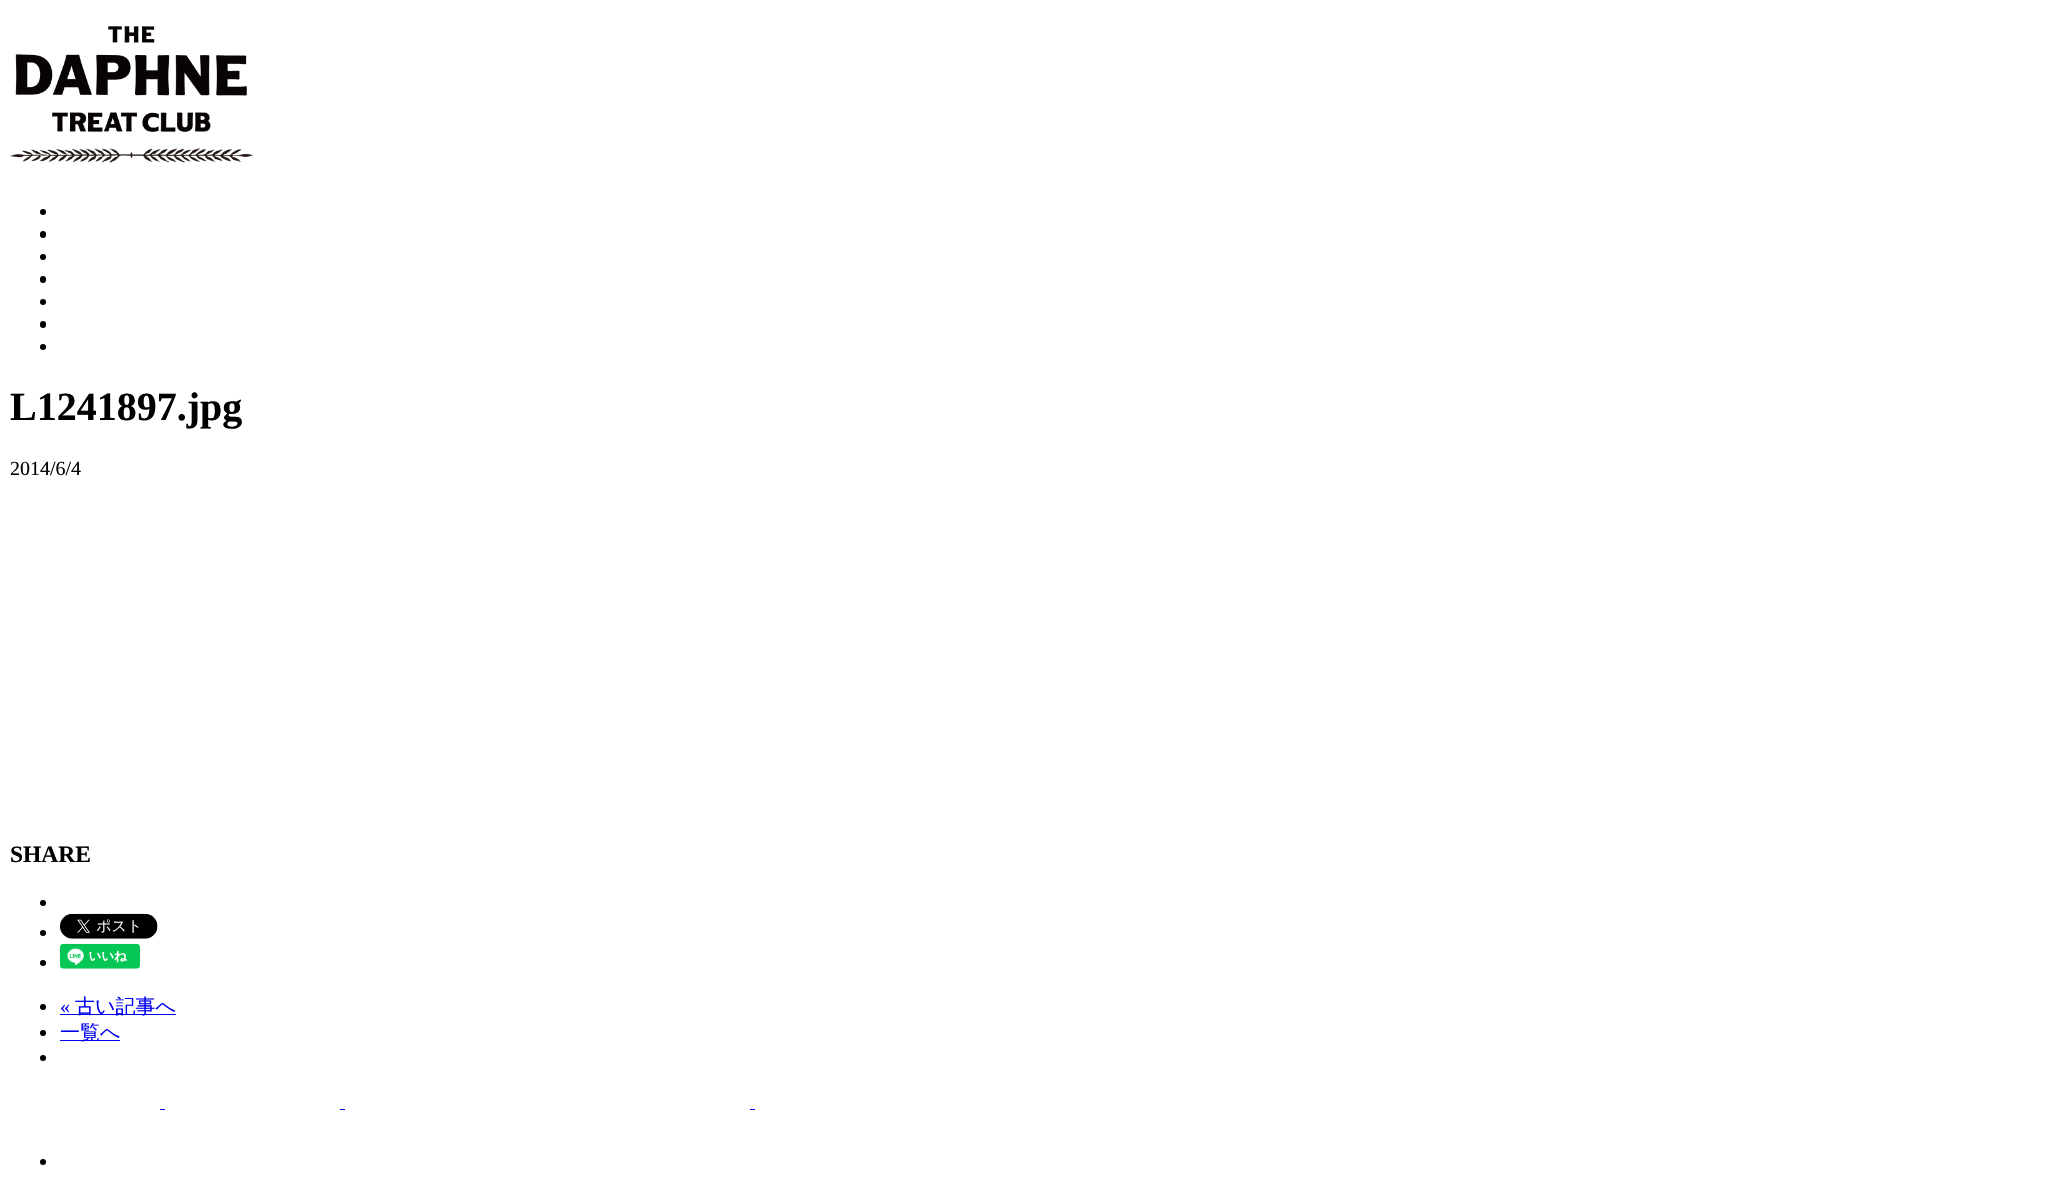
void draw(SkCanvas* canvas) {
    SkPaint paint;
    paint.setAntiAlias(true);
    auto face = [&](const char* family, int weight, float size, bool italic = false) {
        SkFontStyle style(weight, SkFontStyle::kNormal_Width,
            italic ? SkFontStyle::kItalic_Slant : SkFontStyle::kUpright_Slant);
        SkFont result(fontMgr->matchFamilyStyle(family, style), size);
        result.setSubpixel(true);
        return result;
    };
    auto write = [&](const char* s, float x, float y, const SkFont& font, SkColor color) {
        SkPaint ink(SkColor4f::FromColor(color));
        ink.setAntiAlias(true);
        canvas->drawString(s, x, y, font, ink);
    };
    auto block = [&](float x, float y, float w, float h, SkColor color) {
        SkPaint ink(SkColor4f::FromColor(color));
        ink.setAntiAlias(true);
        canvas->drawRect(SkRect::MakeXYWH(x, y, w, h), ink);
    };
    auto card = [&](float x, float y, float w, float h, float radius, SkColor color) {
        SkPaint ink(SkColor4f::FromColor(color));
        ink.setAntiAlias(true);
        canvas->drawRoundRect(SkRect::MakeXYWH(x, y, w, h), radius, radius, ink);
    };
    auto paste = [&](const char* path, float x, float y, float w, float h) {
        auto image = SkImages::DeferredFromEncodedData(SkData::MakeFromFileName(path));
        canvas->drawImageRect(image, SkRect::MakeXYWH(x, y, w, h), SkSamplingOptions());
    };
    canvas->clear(SK_ColorWHITE);
    paste("pic1.png", 10, 26, 243, 137);
    paint.setColor(SK_ColorBLACK);
    canvas->drawCircle(43, 212, 3, paint);
    card(40, 231, 6, 7, 3, SK_ColorBLACK);
    canvas->drawCircle(43, 257, 3, paint);
    card(40, 276, 6, 7, 3, SK_ColorBLACK);
    canvas->drawCircle(43, 302, 3, paint);
    card(40, 321, 6, 7, 3, SK_ColorBLACK);
    canvas->drawCircle(43, 347, 3, paint);
    auto kFont1 = face("Liberation Serif", 700, 40);
    write("L1241897.jpg", 10, 420, kFont1, SK_ColorBLACK);
    auto kFont2 = face("Liberation Serif", 400, 20);
    write("2014/6/4", 10, 475, kFont2, SK_ColorBLACK);
    auto kFont3 = face("Liberation Serif", 700, 23.5f);
    write("SHARE", 10, 862, kFont3, SK_ColorBLACK);
    canvas->drawCircle(43, 903, 3, paint);
    canvas->drawCircle(43, 933, 3, paint);
    paste("pic2.png", 60, 913, 98, 26);
    canvas->drawCircle(43, 963, 3, paint);
    paste("pic3.png", 60, 943, 80, 26);
    canvas->drawCircle(43, 1007, 3, paint);
    write("«", 60, 1013, kFont2, SkColorSetRGB(0, 0, 238));
    block(60, 1014, 116, 1, SkColorSetRGB(0, 0, 238));
    auto kFont4 = face("WenQuanYi Zen Hei", 500, 20);
    write("古い記事へ", 75, 1013, kFont4, SkColorSetRGB(0, 0, 238));
    canvas->drawCircle(43, 1033, 3, paint);
    block(60, 1040, 60, 1, SkColorSetRGB(0, 0, 238));
    write("一覧へ", 60, 1039, kFont4, SkColorSetRGB(0, 0, 238));
    canvas->drawCircle(43, 1058, 3, paint);
    block(160, 1109, 5, 1, SkColorSetRGB(0, 0, 238));
    block(340, 1109, 5, 1, SkColorSetRGB(0, 0, 238));
    block(750, 1109, 5, 1, SkColorSetRGB(0, 0, 238));
    canvas->drawCircle(43, 1162, 3, paint);
}
